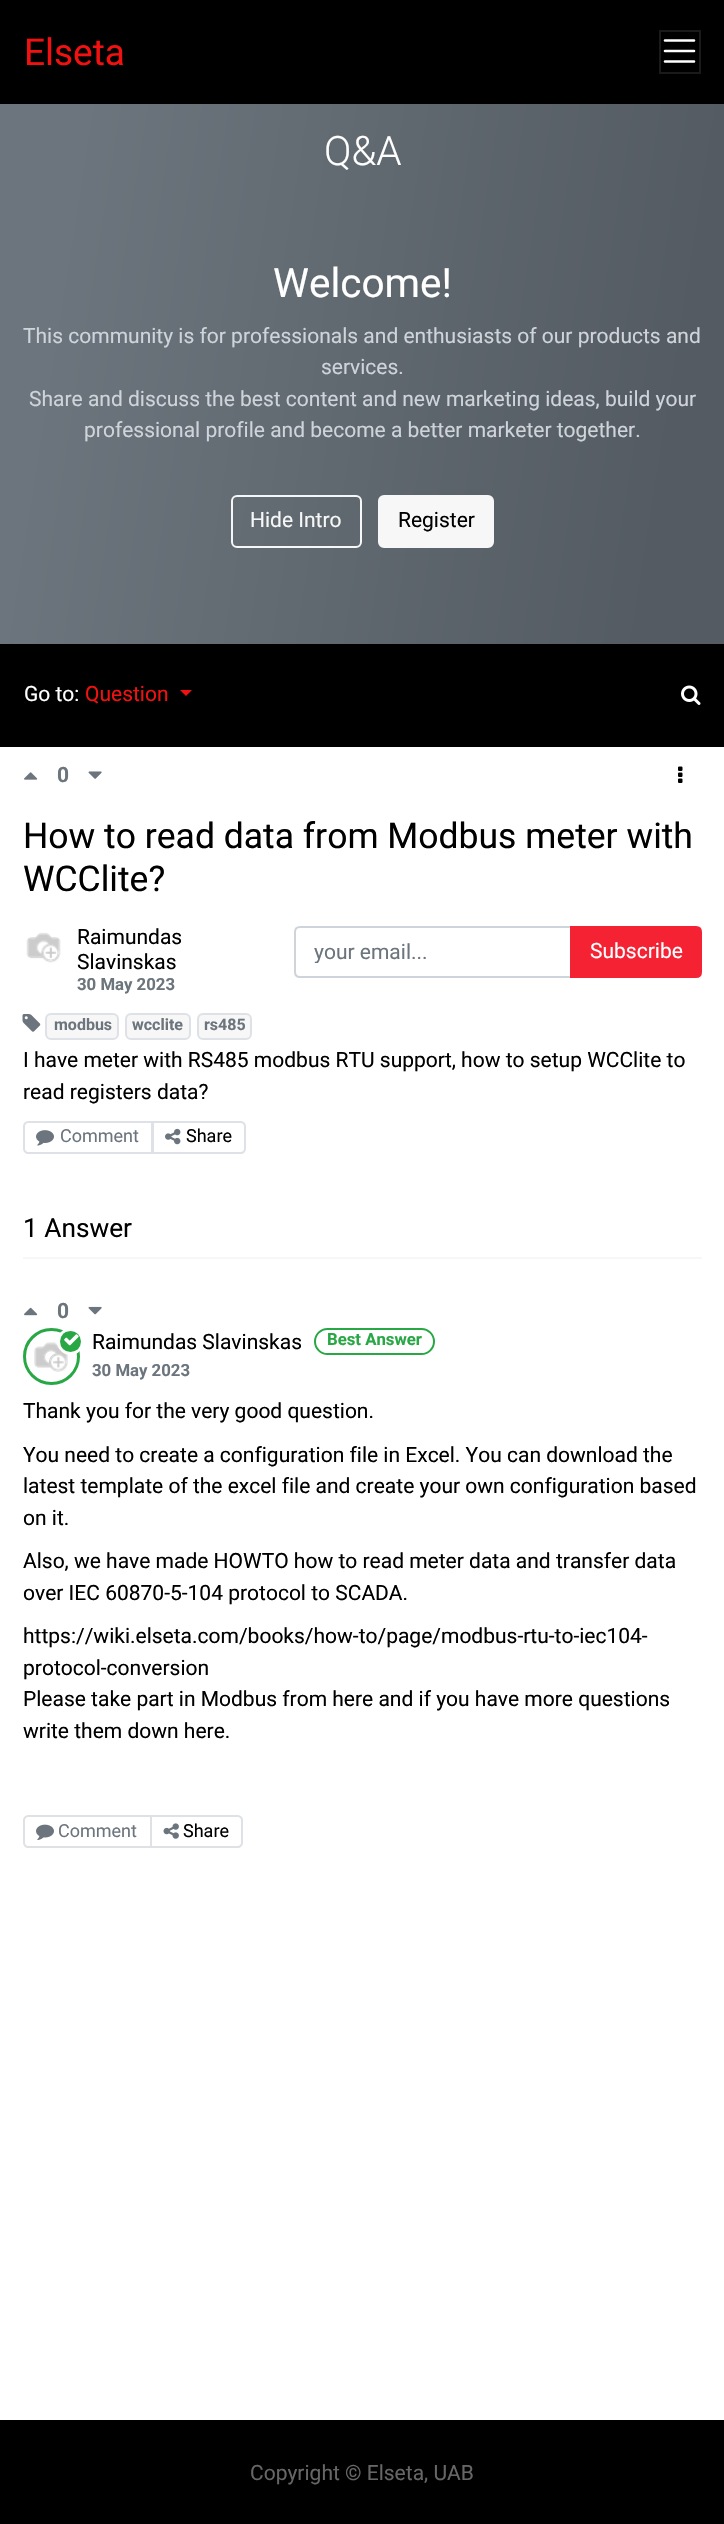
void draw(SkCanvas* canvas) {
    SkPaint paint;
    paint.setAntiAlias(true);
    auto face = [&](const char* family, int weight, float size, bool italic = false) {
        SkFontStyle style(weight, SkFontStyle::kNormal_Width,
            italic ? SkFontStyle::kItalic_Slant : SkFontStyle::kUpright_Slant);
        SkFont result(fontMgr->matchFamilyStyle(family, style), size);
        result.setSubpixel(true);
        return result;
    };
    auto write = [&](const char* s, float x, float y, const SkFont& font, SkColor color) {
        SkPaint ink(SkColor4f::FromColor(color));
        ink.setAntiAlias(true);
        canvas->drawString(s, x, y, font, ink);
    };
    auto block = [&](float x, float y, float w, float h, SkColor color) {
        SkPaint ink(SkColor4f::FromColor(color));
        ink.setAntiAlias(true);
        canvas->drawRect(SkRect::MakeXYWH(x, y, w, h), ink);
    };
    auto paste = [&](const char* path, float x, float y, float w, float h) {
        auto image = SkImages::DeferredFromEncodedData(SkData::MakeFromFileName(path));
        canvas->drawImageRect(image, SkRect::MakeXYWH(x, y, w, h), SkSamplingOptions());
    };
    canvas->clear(SK_ColorWHITE);
    block(0, 0, 724, 104, SK_ColorBLACK);
    auto kFont1 = face("Roboto", 400, 37);
    write("Elseta", 24, 65, kFont1, SkColorSetRGB(241, 17, 17));
    paint.setStyle(SkPaint::kStroke_Style);
    paint.setStrokeWidth(2);
    paint.setColor(SkColorSetRGB(26, 26, 26));
    canvas->drawRect(SkRect::MakeXYWH(660, 31, 40, 42), paint);
    paint.setStrokeWidth(2.6f);
    paint.setStrokeCap(SkPaint::kRound_Cap);
    paint.setColor(SK_ColorWHITE);
    canvas->drawPath(SkPathBuilder().moveTo(665, 40.5f).lineTo(694, 40.5f).moveTo(665, 51).lineTo(694, 51).moveTo(665, 61.5f).lineTo(694, 61.5f).detach(), paint);
    paint.setStyle(SkPaint::kFill_Style);
    {
        const SkColor colors[] = {SkColorSetRGB(108, 117, 125), SkColorSetRGB(84, 91, 98)};
        const float stops[] = {0.1f, 0.9f};
        const SkPoint ends[] = {{-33, 311}, {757, 436}};
        paint.setShader(SkGradientShader::MakeLinear(ends, colors, stops, 2, SkTileMode::kClamp));
        paint.setAlpha(255);
    }
    canvas->drawRect(SkRect::MakeXYWH(0, 104, 724, 540), paint);
    auto kFont2 = face("Roboto", 300, 40.5f);
    write("Q&A", 324, 165, kFont2, SK_ColorWHITE);
    auto kFont3 = face("Roboto", 400, 40.5f);
    write("Welcome!", 273, 297, kFont3, SK_ColorWHITE);
    auto kFont4 = face("Roboto", 400, 21);
    write("This community is for professionals and enthusiasts of our products and", 23, 343, kFont4, SkColorSetRGB(206, 212, 218));
    write("services.", 321, 374, kFont4, SkColorSetRGB(206, 212, 218));
    write("Share and discuss the best content and new marketing ideas, build your", 29, 406, kFont4, SkColorSetRGB(206, 212, 218));
    write("professional profile and become a better marketer together.", 84, 437, kFont4, SkColorSetRGB(206, 212, 218));
    paint.setStyle(SkPaint::kStroke_Style);
    paint.setStrokeWidth(2);
    paint.setStrokeCap(SkPaint::kButt_Cap);
    paint.setShader(nullptr);
    paint.setColor(SkColorSetRGB(247, 247, 247));
    canvas->drawRoundRect(SkRect::MakeXYWH(232, 496, 129, 51), 5, 5, paint);
    write("Hide Intro", 250, 527, kFont4, SkColorSetRGB(247, 247, 247));
    paint.setStyle(SkPaint::kFill_Style);
    canvas->drawRoundRect(SkRect::MakeXYWH(379, 496, 114, 51), 5, 5, paint);
    paint.setStyle(SkPaint::kStroke_Style);
    canvas->drawRoundRect(SkRect::MakeXYWH(379, 496, 114, 51), 5, 5, paint);
    write("Register", 398, 527, kFont4, SK_ColorBLACK);
    block(0, 644, 724, 103, SK_ColorBLACK);
    write("Go to:", 24, 701, kFont4, SK_ColorWHITE);
    write("Question", 85, 701, kFont4, SkColorSetRGB(241, 17, 17));
    paint.setStyle(SkPaint::kFill_Style);
    paint.setColor(SkColorSetRGB(241, 17, 17));
    canvas->drawPath(SkPathBuilder().moveTo(180, 690).lineTo(192, 690).lineTo(186, 696).close().detach(), paint);
    paste("pic1.png", 681, 685, 20, 20);
    paste("pic2.png", 24, 772, 14, 8);
    auto kFont5 = face("Roboto", 700, 21);
    write("0", 57, 782, kFont5, SkColorSetRGB(108, 117, 125));
    paste("pic3.png", 88, 771, 14, 8);
    paste("pic4.png", 678, 766, 5, 17);
    auto kFont6 = face("Roboto", 400, 35.5f);
    write("How to read data from Modbus meter with", 23, 848, kFont6, SK_ColorBLACK);
    write("WCClite?", 23, 891, kFont6, SK_ColorBLACK);
    paste("pic5.png", 26, 932, 35, 31);
    write("Raimundas", 77, 944, kFont4, SK_ColorBLACK);
    write("Slavinskas", 77, 969, kFont4, SK_ColorBLACK);
    auto kFont7 = face("Roboto", 700, 16.75f);
    write("30 May 2023", 77, 990, kFont7, SkColorSetRGB(108, 117, 125));
    paint.setStyle(SkPaint::kStroke_Style);
    paint.setColor(SkColorSetRGB(206, 212, 218));
    canvas->drawPath(SkPathBuilder().moveTo(300, 927).lineTo(572, 927).lineTo(572, 977).lineTo(300, 977).cubicTo(297, 977, 295, 975, 295, 972).lineTo(295, 932).cubicTo(295, 929, 297, 927, 300, 927).close().detach(), paint);
    canvas->save();
    canvas->clipRect(SkRect::MakeXYWH(314, 939, 240, 24));
    write("your email...", 314, 959, kFont4, SkColorSetRGB(108, 117, 125));
    canvas->restore();
    paint.setStyle(SkPaint::kFill_Style);
    paint.setColor(SkColorSetRGB(245, 34, 52));
    canvas->drawPath(SkPathBuilder().moveTo(571, 927).lineTo(696, 927).cubicTo(699, 927, 701, 929, 701, 932).lineTo(701, 972).cubicTo(701, 975, 699, 977, 696, 977).lineTo(571, 977).close().detach(), paint);
    paint.setStyle(SkPaint::kStroke_Style);
    canvas->drawPath(SkPathBuilder().moveTo(571, 927).lineTo(696, 927).cubicTo(699, 927, 701, 929, 701, 932).lineTo(701, 972).cubicTo(701, 975, 699, 977, 696, 977).lineTo(571, 977).close().detach(), paint);
    write("Subscribe", 590, 958, kFont4, SK_ColorWHITE);
    paste("pic6.png", 22, 1014, 19, 18);
    paint.setStyle(SkPaint::kFill_Style);
    paint.setColor(SkColorSetRGB(247, 247, 247));
    canvas->drawRoundRect(SkRect::MakeXYWH(46, 1014, 72, 25), 5, 5, paint);
    paint.setStyle(SkPaint::kStroke_Style);
    paint.setColor(SkColorSetRGB(222, 226, 230));
    canvas->drawRoundRect(SkRect::MakeXYWH(46, 1014, 72, 25), 5, 5, paint);
    auto kFont8 = face("Roboto", 700, 16);
    write("modbus", 54, 1030, kFont8, SkColorSetRGB(108, 117, 125));
    paint.setStyle(SkPaint::kFill_Style);
    paint.setColor(SkColorSetRGB(247, 247, 247));
    canvas->drawRoundRect(SkRect::MakeXYWH(126, 1014, 64, 25), 5, 5, paint);
    paint.setStyle(SkPaint::kStroke_Style);
    paint.setColor(SkColorSetRGB(222, 226, 230));
    canvas->drawRoundRect(SkRect::MakeXYWH(126, 1014, 64, 25), 5, 5, paint);
    write("wcclite", 132, 1030, kFont8, SkColorSetRGB(108, 117, 125));
    paint.setStyle(SkPaint::kFill_Style);
    paint.setColor(SkColorSetRGB(247, 247, 247));
    canvas->drawRoundRect(SkRect::MakeXYWH(198, 1014, 53, 25), 5, 5, paint);
    paint.setStyle(SkPaint::kStroke_Style);
    paint.setColor(SkColorSetRGB(222, 226, 230));
    canvas->drawRoundRect(SkRect::MakeXYWH(198, 1014, 53, 25), 5, 5, paint);
    write("rs485", 204, 1030, kFont8, SkColorSetRGB(108, 117, 125));
    write("I have meter with RS485 modbus RTU support, how to setup WCClite to", 23, 1067, kFont4, SK_ColorBLACK);
    write("read registers data?", 23, 1099, kFont4, SK_ColorBLACK);
    canvas->drawPath(SkPathBuilder().moveTo(28, 1122).lineTo(152, 1122).lineTo(152, 1153).lineTo(28, 1153).cubicTo(26, 1153, 24, 1151, 24, 1149).lineTo(24, 1126).cubicTo(24, 1124, 26, 1122, 28, 1122).close().detach(), paint);
    paste("pic7.png", 36, 1130, 18, 16);
    auto kFont9 = face("Roboto", 400, 18);
    write("Comment", 60, 1142, kFont9, SkColorSetRGB(108, 117, 125));
    canvas->drawPath(SkPathBuilder().moveTo(153, 1122).lineTo(241, 1122).cubicTo(243, 1122, 245, 1124, 245, 1126).lineTo(245, 1149).cubicTo(245, 1151, 243, 1153, 241, 1153).lineTo(153, 1153).close().detach(), paint);
    paste("pic8.png", 165, 1128, 16, 17);
    write("Share", 186, 1142, kFont9, SK_ColorBLACK);
    auto kFont10 = face("Roboto", 400, 26.25f);
    write("1 Answer", 23, 1237, kFont10, SK_ColorBLACK);
    block(23, 1257, 679, 2, SkColorSetRGB(247, 247, 247));
    paste("pic9.png", 24, 1307, 14, 9);
    write("0", 57, 1318, kFont5, SkColorSetRGB(108, 117, 125));
    paste("pic10.png", 88, 1306, 14, 9);
    paint.setStrokeWidth(3);
    paint.setColor(SkColorSetRGB(40, 167, 69));
    canvas->drawCircle(51.5f, 1356.5f, 27, paint);
    paste("pic11.png", 34, 1342, 34, 30);
    paint.setColor(SK_ColorWHITE);
    canvas->drawCircle(70.5f, 1341.5f, 12, paint);
    paint.setStyle(SkPaint::kFill_Style);
    paint.setColor(SkColorSetRGB(40, 167, 69));
    canvas->drawCircle(70.5f, 1341.5f, 10.5f, paint);
    paste("pic12.png", 64, 1334, 15, 12);
    write("Raimundas Slavinskas", 92, 1349, kFont4, SK_ColorBLACK);
    write("30 May 2023", 92, 1376, kFont7, SkColorSetRGB(108, 117, 125));
    paint.setStyle(SkPaint::kStroke_Style);
    paint.setStrokeWidth(2);
    canvas->drawRoundRect(SkRect::MakeXYWH(315, 1329, 119, 25), 12.5f, 12.5f, paint);
    write("Best Answer", 327, 1345, kFont7, SkColorSetRGB(40, 167, 69));
    write("Thank you for the very good question.", 23, 1418, kFont4, SK_ColorBLACK);
    write("You need to create a configuration file in Excel. You can download the", 23, 1462, kFont4, SK_ColorBLACK);
    write("latest template of the excel file and create your own configuration based", 23, 1493, kFont4, SK_ColorBLACK);
    write("on it.", 23, 1525, kFont4, SK_ColorBLACK);
    write("Also, we have made HOWTO how to read meter data and transfer data", 23, 1568, kFont4, SK_ColorBLACK);
    write("over IEC 60870-5-104 protocol to SCADA.", 23, 1600, kFont4, SK_ColorBLACK);
    write("https://wiki.elseta.com/books/how-to/page/modbus-rtu-to-iec104-", 23, 1643, kFont4, SK_ColorBLACK);
    write("protocol-conversion", 23, 1675, kFont4, SK_ColorBLACK);
    write("Please take part in Modbus from here and if you have more questions", 23, 1706, kFont4, SK_ColorBLACK);
    write("write them down here.", 23, 1738, kFont4, SK_ColorBLACK);
    paint.setColor(SkColorSetRGB(222, 226, 230));
    canvas->drawPath(SkPathBuilder().moveTo(28, 1816).lineTo(151, 1816).lineTo(151, 1847).lineTo(28, 1847).cubicTo(26, 1847, 24, 1845, 24, 1843).lineTo(24, 1820).cubicTo(24, 1818, 26, 1816, 28, 1816).close().detach(), paint);
    paste("pic13.png", 36, 1824, 18, 16);
    write("Comment", 58, 1837, kFont9, SkColorSetRGB(108, 117, 125));
    canvas->drawPath(SkPathBuilder().moveTo(151, 1816).lineTo(238, 1816).cubicTo(240, 1816, 242, 1818, 242, 1820).lineTo(242, 1843).cubicTo(242, 1845, 240, 1847, 238, 1847).lineTo(151, 1847).close().detach(), paint);
    paste("pic14.png", 163, 1823, 16, 16);
    write("Share", 183, 1837, kFont9, SK_ColorBLACK);
    block(0, 2420, 724, 104, SK_ColorBLACK);
    write("Copyright © Elseta, UAB", 250, 2480, kFont4, SkColorSetRGB(102, 102, 102));
}
